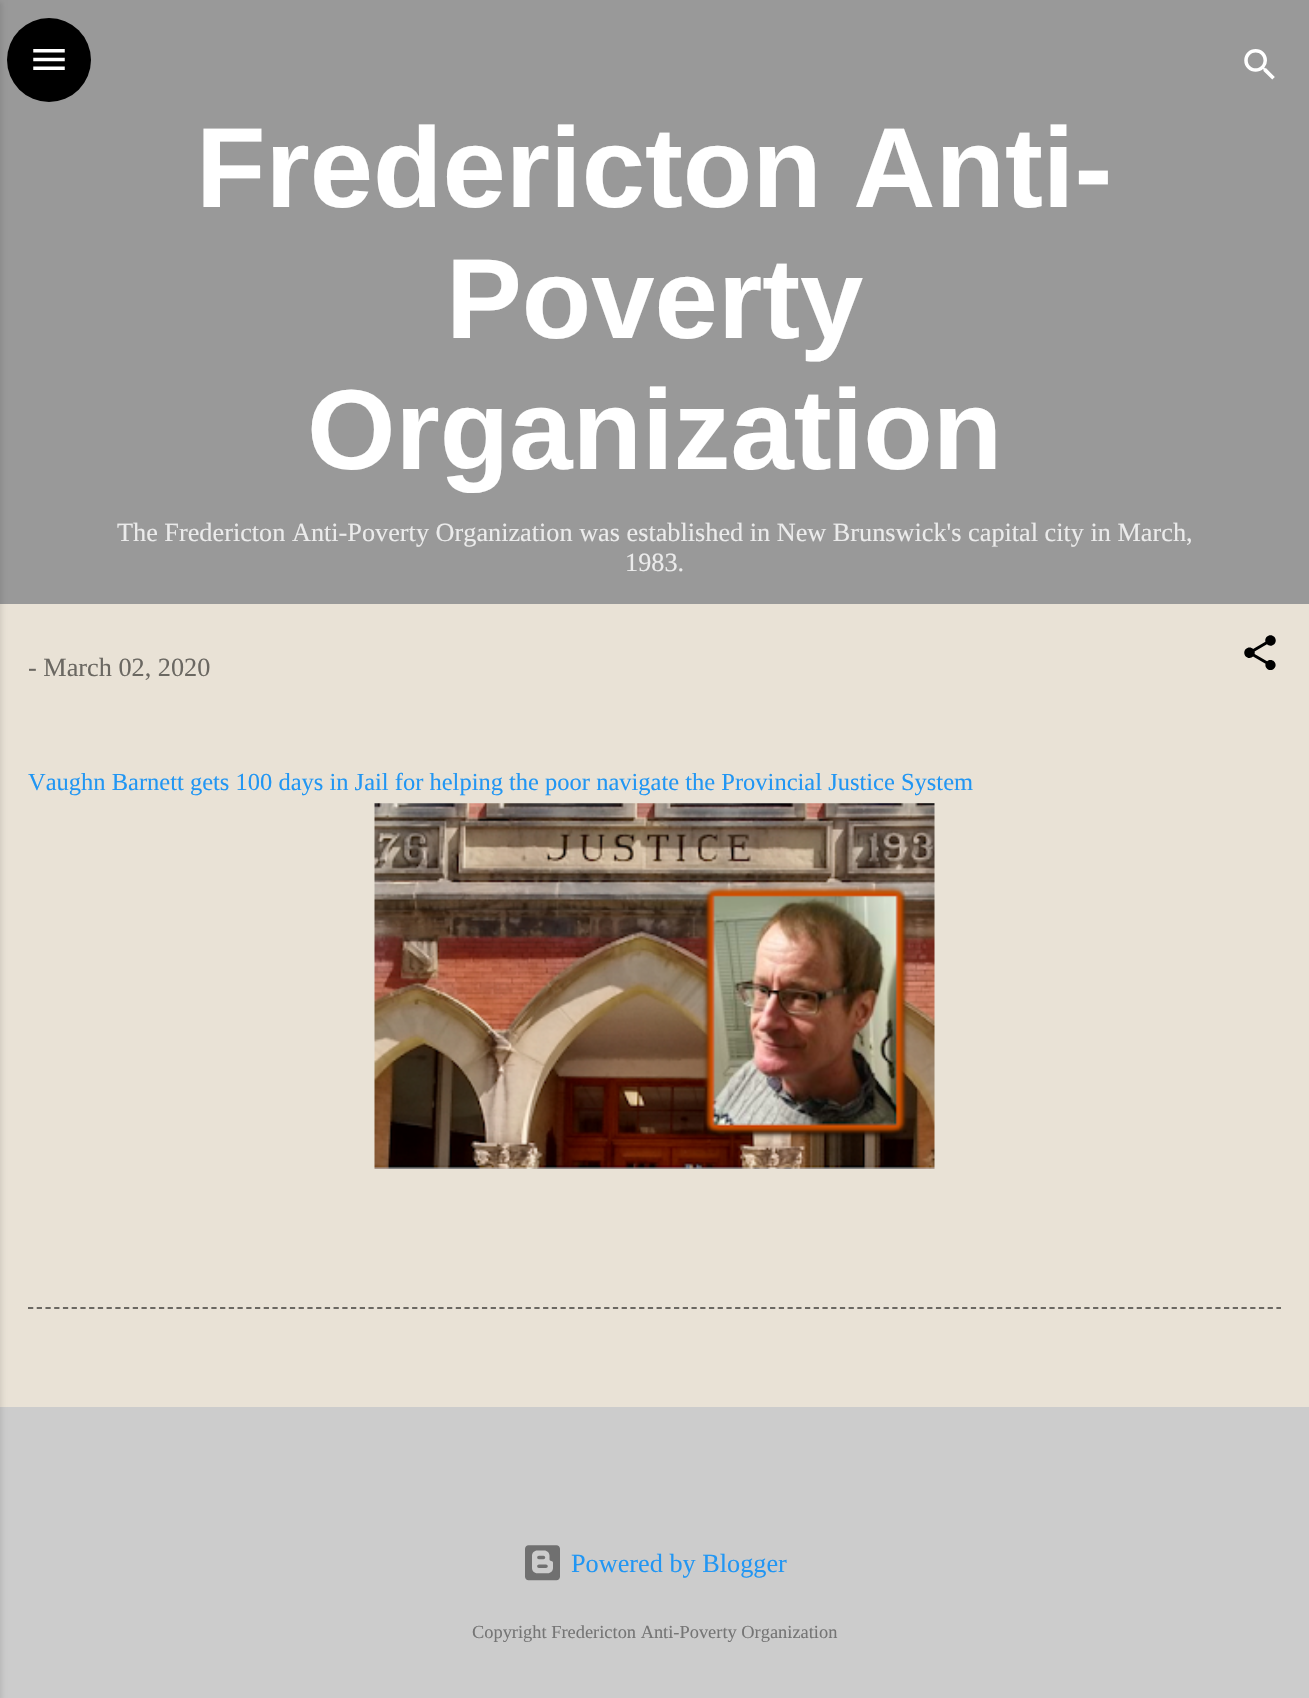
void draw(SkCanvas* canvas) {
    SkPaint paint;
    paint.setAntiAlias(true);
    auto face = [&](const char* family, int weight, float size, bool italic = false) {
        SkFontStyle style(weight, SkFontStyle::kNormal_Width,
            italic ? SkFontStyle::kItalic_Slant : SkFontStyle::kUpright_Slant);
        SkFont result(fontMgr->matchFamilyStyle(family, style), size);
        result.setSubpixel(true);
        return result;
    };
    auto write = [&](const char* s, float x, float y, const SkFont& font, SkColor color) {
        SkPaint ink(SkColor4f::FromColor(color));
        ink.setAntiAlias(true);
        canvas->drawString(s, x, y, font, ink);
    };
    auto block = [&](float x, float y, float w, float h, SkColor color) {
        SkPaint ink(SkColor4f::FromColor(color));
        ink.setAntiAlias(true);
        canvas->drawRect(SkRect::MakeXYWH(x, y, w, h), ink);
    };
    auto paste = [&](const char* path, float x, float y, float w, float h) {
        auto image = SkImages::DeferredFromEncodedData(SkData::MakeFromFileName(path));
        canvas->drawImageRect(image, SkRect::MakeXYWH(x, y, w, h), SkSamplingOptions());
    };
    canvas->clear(SkColorSetRGB(204, 204, 204));
    block(0, 0, 1309, 604, SkColorSetRGB(153, 153, 153));
    paint.setColor(SK_ColorBLACK);
    canvas->drawCircle(49, 60, 42, paint);
    block(0, 604, 1309, 803, SkColorSetRGB(233, 226, 214));
    paint.setColor(SkColorSetARGB(26, 0, 0, 0));
    paint.setMaskFilter(SkMaskFilter::MakeBlur(kNormal_SkBlurStyle, 2.5f));
    canvas->drawRect(SkRect::MakeXYWH(-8, 2, 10, 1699), paint);
    paint.setMaskFilter(nullptr);
    paste("pic1.png", 33, 49, 32, 21);
    paste("pic2.png", 1244, 49, 31, 31);
    auto kFont1 = face("Liberation Sans", 700, 113.75f);
    write("Fredericton Anti-", 196, 207, kFont1, SK_ColorWHITE);
    write("Poverty", 446, 338, kFont1, SK_ColorWHITE);
    write("Organization", 307, 469, kFont1, SK_ColorWHITE);
    auto kFont2 = face("Liberation Serif", 400, 26.25f);
    write("The Fredericton Anti-Poverty Organization was established in New Brunswick's capital city in March,", 117, 541, kFont2, SkColorSetRGB(235, 235, 235));
    write("1983.", 625, 571, kFont2, SkColorSetRGB(235, 235, 235));
    write("- March 02, 2020", 28, 676, kFont2, SkColorSetRGB(107, 104, 98));
    paste("pic3.png", 1244, 635, 32, 35);
    auto kFont3 = face("Liberation Serif", 400, 24.5f);
    write("Vaughn Barnett gets 100 days in Jail for helping the poor navigate the Provincial Justice System", 28, 790, kFont3, SkColorSetRGB(33, 150, 243));
    paste("pic4.png", 374, 803, 561, 366);
    paint.setStyle(SkPaint::kStroke_Style);
    paint.setStrokeWidth(1.8f);
    paint.setColor(SkColorSetRGB(107, 104, 98));
    paint.setPathEffect(SkDashPathEffect::Make({{5.25f, 3.48f}}, 0));
    canvas->drawPath(SkPathBuilder().moveTo(28, 1308).lineTo(1281, 1308).detach(), paint);
    paint.setPathEffect(nullptr);
    paste("pic5.png", 525, 1545, 35, 36);
    write("Powered by Blogger", 571, 1572, kFont2, SkColorSetRGB(33, 150, 243));
    auto kFont4 = face("Liberation Serif", 400, 18.4f);
    write("Copyright Fredericton Anti-Poverty Organization", 472, 1638, kFont4, SkColorSetRGB(117, 117, 117));
}
